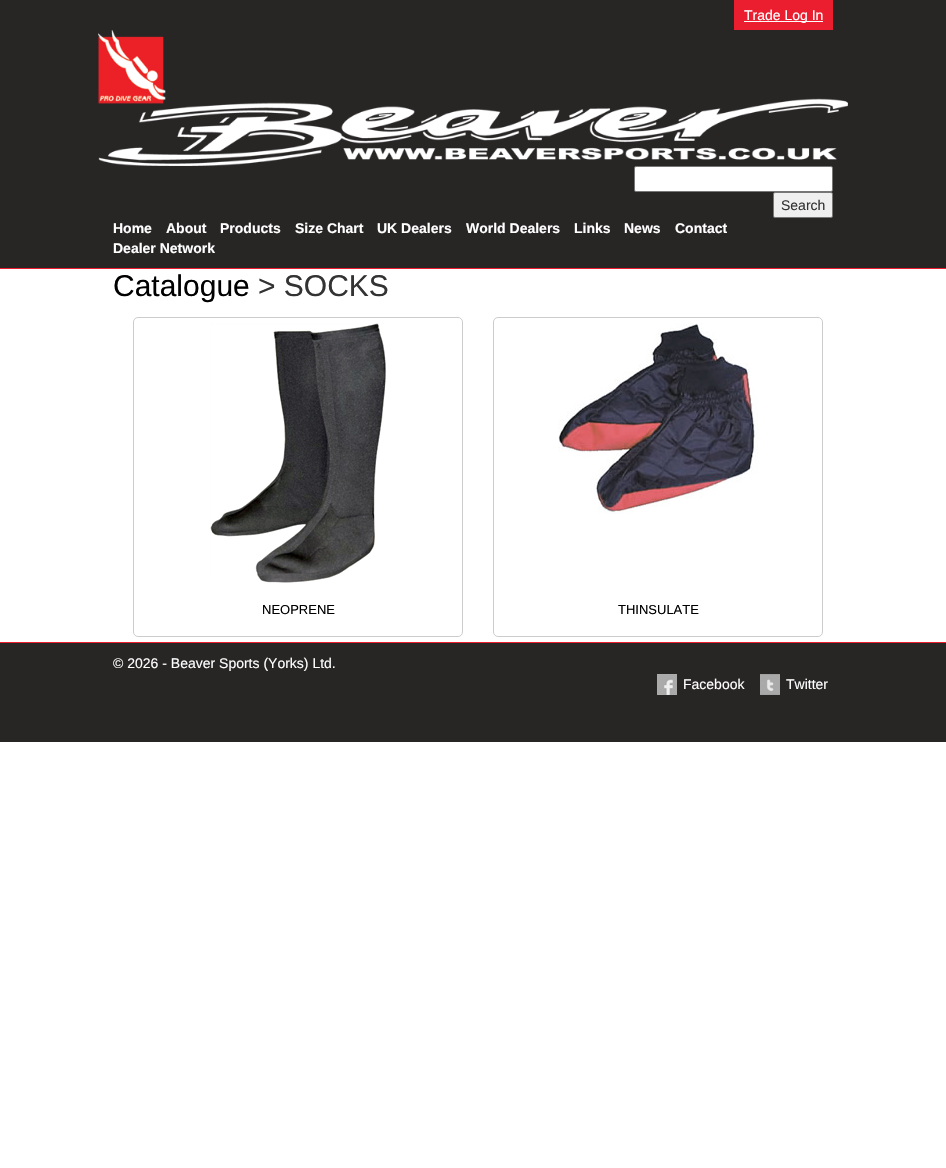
void draw(SkCanvas* canvas) {
    SkPaint paint;
    paint.setAntiAlias(true);
    auto face = [&](const char* family, int weight, float size, bool italic = false) {
        SkFontStyle style(weight, SkFontStyle::kNormal_Width,
            italic ? SkFontStyle::kItalic_Slant : SkFontStyle::kUpright_Slant);
        SkFont result(fontMgr->matchFamilyStyle(family, style), size);
        result.setSubpixel(true);
        return result;
    };
    auto write = [&](const char* s, float x, float y, const SkFont& font, SkColor color) {
        SkPaint ink(SkColor4f::FromColor(color));
        ink.setAntiAlias(true);
        canvas->drawString(s, x, y, font, ink);
    };
    auto block = [&](float x, float y, float w, float h, SkColor color) {
        SkPaint ink(SkColor4f::FromColor(color));
        ink.setAntiAlias(true);
        canvas->drawRect(SkRect::MakeXYWH(x, y, w, h), ink);
    };
    auto paste = [&](const char* path, float x, float y, float w, float h) {
        auto image = SkImages::DeferredFromEncodedData(SkData::MakeFromFileName(path));
        canvas->drawImageRect(image, SkRect::MakeXYWH(x, y, w, h), SkSamplingOptions());
    };
    canvas->clear(SK_ColorWHITE);
    block(0, 0, 946, 268, SkColorSetRGB(40, 37, 37));
    block(0, 268, 946, 1, SkColorSetRGB(234, 30, 47));
    block(734, 0, 99, 30, SkColorSetRGB(234, 30, 47));
    block(744, 21, 79, 1, SK_ColorWHITE);
    auto kFont1 = face("Liberation Sans", 400, 14);
    write("Trade Log In", 744, 20, kFont1, SK_ColorWHITE);
    paste("pic1.png", 98, 30, 750, 136);
    paint.setColor(SK_ColorWHITE);
    canvas->drawRoundRect(SkRect::MakeXYWH(634.5f, 166.5f, 198, 25), 1.5f, 1.5f, paint);
    paint.setStyle(SkPaint::kStroke_Style);
    paint.setStrokeWidth(1);
    paint.setColor(SkColorSetRGB(118, 118, 118));
    canvas->drawRoundRect(SkRect::MakeXYWH(634.5f, 166.5f, 198, 25), 1.5f, 1.5f, paint);
    paint.setStyle(SkPaint::kFill_Style);
    paint.setColor(SkColorSetRGB(239, 239, 239));
    canvas->drawRoundRect(SkRect::MakeXYWH(773.5f, 192.5f, 59, 25), 1.5f, 1.5f, paint);
    paint.setStyle(SkPaint::kStroke_Style);
    paint.setColor(SkColorSetRGB(118, 118, 118));
    canvas->drawRoundRect(SkRect::MakeXYWH(773.5f, 192.5f, 59, 25), 1.5f, 1.5f, paint);
    write("Search", 781, 210, kFont1, SkColorSetRGB(51, 51, 51));
    auto kFont2 = face("Liberation Sans", 700, 14);
    write("Home", 113, 233, kFont2, SK_ColorWHITE);
    write("About", 166, 233, kFont2, SK_ColorWHITE);
    write("Products", 220, 233, kFont2, SK_ColorWHITE);
    write("Size Chart", 295, 233, kFont2, SK_ColorWHITE);
    write("UK Dealers", 377, 233, kFont2, SK_ColorWHITE);
    write("World Dealers", 466, 233, kFont2, SK_ColorWHITE);
    write("Links", 574, 233, kFont2, SK_ColorWHITE);
    write("News", 624, 233, kFont2, SK_ColorWHITE);
    write("Contact", 675, 233, kFont2, SK_ColorWHITE);
    write("Dealer Network", 113, 253, kFont2, SK_ColorWHITE);
    auto kFont3 = face("Liberation Sans", 400, 30);
    write("Catalogue", 113, 296, kFont3, SK_ColorBLACK);
    write("> SOCKS", 258, 296, kFont3, SkColorSetRGB(51, 51, 51));
    paint.setColor(SkColorSetRGB(204, 204, 204));
    canvas->drawRoundRect(SkRect::MakeXYWH(133.5f, 317.5f, 329, 319), 4.5f, 4.5f, paint);
    paste("pic2.png", 210, 323, 176, 260);
    auto kFont4 = face("Liberation Sans", 400, 13);
    write("NEOPRENE", 262, 614, kFont4, SK_ColorBLACK);
    canvas->drawRoundRect(SkRect::MakeXYWH(493.5f, 317.5f, 329, 319), 4.5f, 4.5f, paint);
    paste("pic3.png", 558, 323, 200, 191);
    write("THINSULATE", 618, 614, kFont4, SK_ColorBLACK);
    block(0, 643, 946, 99, SkColorSetRGB(40, 37, 37));
    block(0, 642, 946, 1, SkColorSetRGB(234, 30, 47));
    write("© 2026 - Beaver Sports (Yorks) Ltd.", 113, 668, kFont1, SK_ColorWHITE);
    paste("pic4.png", 657, 674, 20, 21);
    write("Facebook", 683, 689, kFont1, SK_ColorWHITE);
    paste("pic5.png", 760, 674, 20, 21);
    write("Twitter", 786, 689, kFont1, SK_ColorWHITE);
}
